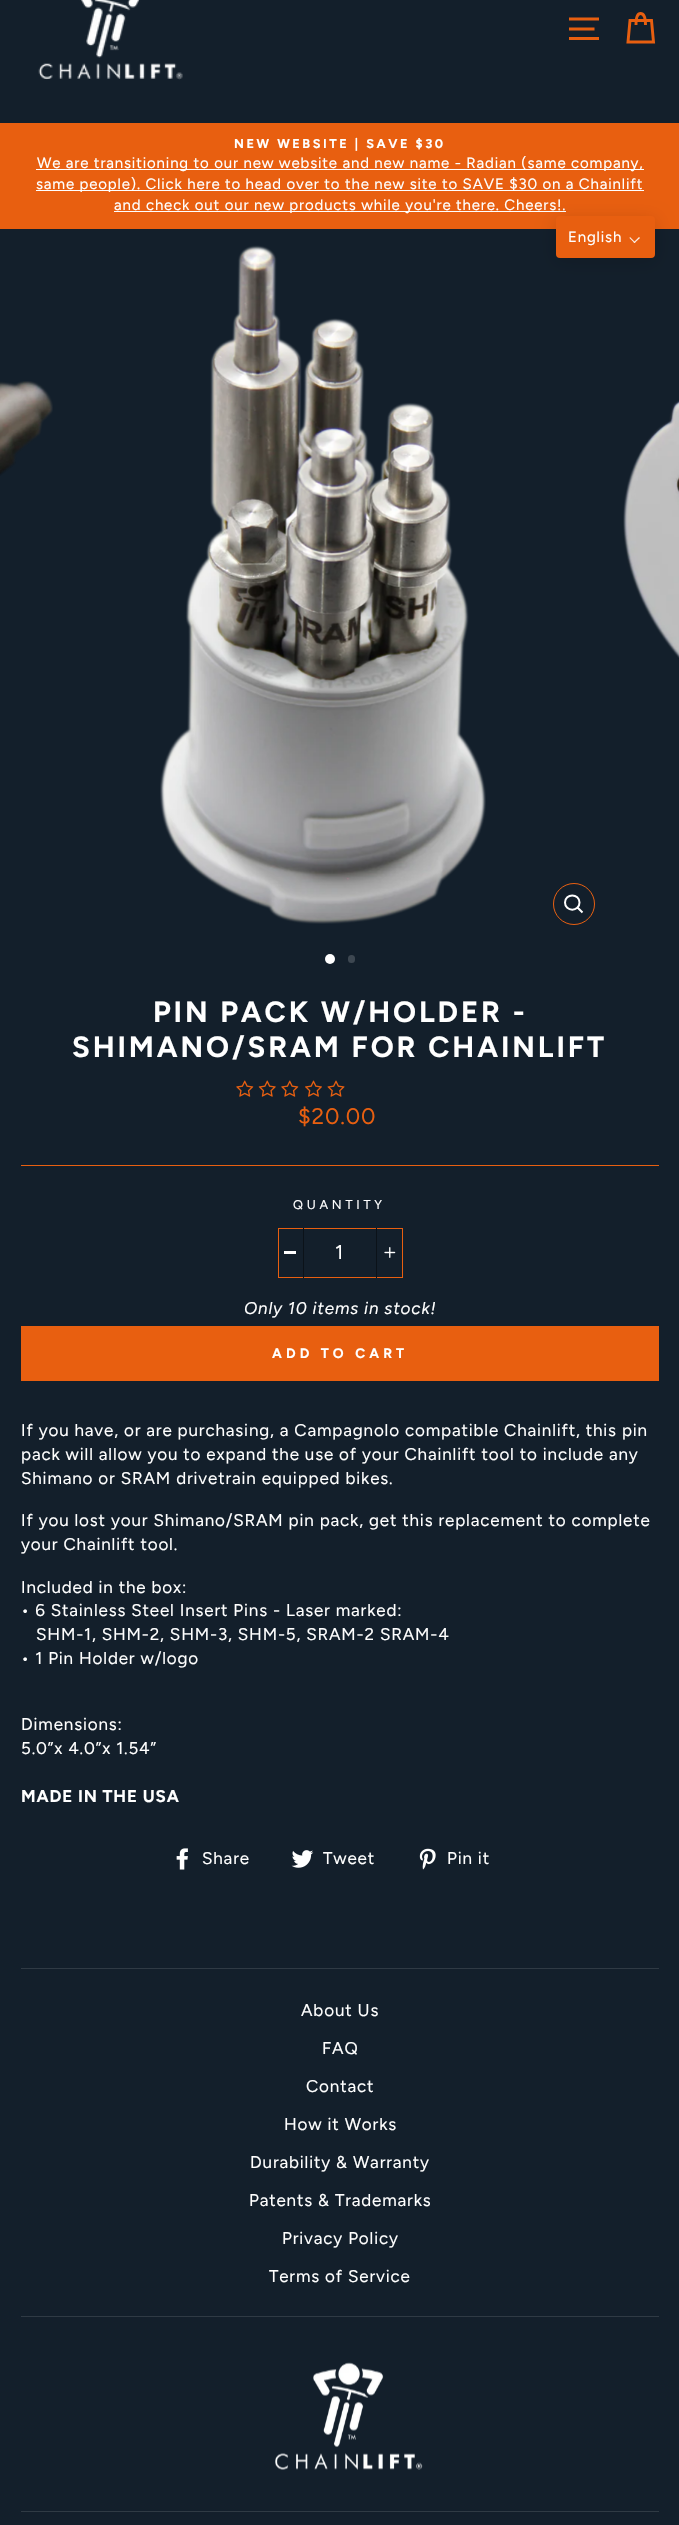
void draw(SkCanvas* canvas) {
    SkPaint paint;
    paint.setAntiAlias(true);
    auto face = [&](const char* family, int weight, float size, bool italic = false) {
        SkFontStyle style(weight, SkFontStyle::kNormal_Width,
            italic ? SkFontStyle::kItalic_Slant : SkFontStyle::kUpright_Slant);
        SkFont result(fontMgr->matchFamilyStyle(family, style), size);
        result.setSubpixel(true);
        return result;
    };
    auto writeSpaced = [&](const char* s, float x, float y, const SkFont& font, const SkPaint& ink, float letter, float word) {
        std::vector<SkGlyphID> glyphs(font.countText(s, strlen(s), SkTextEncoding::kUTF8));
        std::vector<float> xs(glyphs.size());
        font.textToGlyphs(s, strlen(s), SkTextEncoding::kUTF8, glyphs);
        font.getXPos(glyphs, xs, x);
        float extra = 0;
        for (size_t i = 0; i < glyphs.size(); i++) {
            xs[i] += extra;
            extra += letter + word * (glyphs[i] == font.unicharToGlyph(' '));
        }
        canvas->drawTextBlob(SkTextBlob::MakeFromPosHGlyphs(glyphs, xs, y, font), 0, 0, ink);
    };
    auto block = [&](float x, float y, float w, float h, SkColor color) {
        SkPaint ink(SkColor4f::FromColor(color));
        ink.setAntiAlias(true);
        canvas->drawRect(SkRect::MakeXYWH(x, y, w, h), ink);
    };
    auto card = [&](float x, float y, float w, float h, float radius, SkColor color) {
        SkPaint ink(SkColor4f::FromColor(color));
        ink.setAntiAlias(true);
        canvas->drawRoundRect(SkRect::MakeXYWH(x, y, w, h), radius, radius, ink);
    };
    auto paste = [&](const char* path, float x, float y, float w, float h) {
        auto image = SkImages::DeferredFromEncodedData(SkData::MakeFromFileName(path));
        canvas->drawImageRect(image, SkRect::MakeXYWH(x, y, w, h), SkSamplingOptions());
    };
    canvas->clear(SkColorSetRGB(19, 31, 43));
    paste("pic1.png", 38, 0, 145, 80);
    paint.setStyle(SkPaint::kStroke_Style);
    paint.setStrokeWidth(2.9f);
    paint.setColor(SkColorSetRGB(232, 95, 16));
    canvas->drawPath(SkPathBuilder().moveTo(569, 19).lineTo(599, 19).moveTo(569, 29).lineTo(594.5f, 29).moveTo(569, 38.5f).lineTo(599, 38.5f).detach(), paint);
    canvas->drawPath(SkPathBuilder().moveTo(636, 25).cubicTo(636, 16, 638, 13.5f, 640.5f, 13.5f).cubicTo(643, 13.5f, 645.5f, 16, 645.5f, 25).moveTo(630, 20.5f).lineTo(651.5f, 20.5f).lineTo(653.5f, 42).lineTo(628, 42).close().detach(), paint);
    block(0, 123, 679, 106, SkColorSetRGB(232, 95, 16));
    auto kFont1 = face("Figtree", 700, 12.75f);
    paint.setStyle(SkPaint::kFill_Style);
    paint.setColor(SK_ColorWHITE);
    writeSpaced("NEW WEBSITE | SAVE $30", 234, 148, kFont1, paint, 2.55f, 0);
    block(36, 169, 608, 1, SK_ColorWHITE);
    auto kFont2 = face("Figtree", 400, 15);
    writeSpaced("We are transitioning to our new website and new name - Radian (same company,", 37, 168, kFont2, paint, 0.85f, 0);
    block(36, 190, 608, 1, SK_ColorWHITE);
    writeSpaced("same people). Click here to head over to the new site to SAVE $30 on a Chainlift", 36, 189, kFont2, paint, 0.85f, 0);
    block(114, 211, 452, 1, SK_ColorWHITE);
    writeSpaced("and check out our new products while you're there. Cheers!.", 114, 210, kFont2, paint, 0.85f, 0);
    paste("pic2.png", 0, 381, 53, 95);
    paste("pic3.png", 160, 245, 326, 679);
    paint.setStyle(SkPaint::kStroke_Style);
    paint.setStrokeWidth(1);
    paint.setColor(SkColorSetRGB(232, 95, 16));
    canvas->drawCircle(574, 904, 20.5f, paint);
    paint.setStrokeWidth(2);
    paint.setColor(SK_ColorWHITE);
    canvas->drawPath(SkPathBuilder().moveTo(579.5f, 902.5f).cubicTo(579.5f, 912, 565, 912, 565, 902.5f).cubicTo(565, 893, 579.5f, 893, 579.5f, 902.5f).close().moveTo(582.5f, 912.5f).lineTo(577.5f, 907.5f).detach(), paint);
    paste("pic4.png", 623, 400, 56, 258);
    paint.setStyle(SkPaint::kFill_Style);
    canvas->drawCircle(330, 959, 5, paint);
    card(348, 955, 7, 8, 3.5f, SkColorSetRGB(61, 71, 81));
    auto kFont3 = face("Figtree", 700, 29.25f);
    writeSpaced("PIN PACK W/HOLDER -", 153, 1022, kFont3, paint, 2.9f, 0);
    writeSpaced("SHIMANO/SRAM FOR CHAINLIFT", 72, 1057, kFont3, paint, 2.9f, 0);
    paste("pic5.png", 236, 1080, 18, 17);
    paste("pic6.png", 258, 1080, 18, 17);
    paste("pic5.png", 281, 1080, 18, 17);
    paste("pic7.png", 305, 1080, 17, 17);
    paste("pic8.png", 327, 1080, 18, 17);
    auto kFont4 = face("Figtree", 400, 22.5f);
    paint.setColor(SkColorSetRGB(232, 95, 16));
    writeSpaced("$20.00", 298, 1124, kFont4, paint, 0.85f, 0);
    block(21, 1165, 638, 1, SkColorSetRGB(232, 95, 16));
    auto kFont5 = face("Figtree", 400, 12.75f);
    paint.setColor(SK_ColorWHITE);
    writeSpaced("QUANTITY", 293, 1209, kFont5, paint, 3.75f, 0);
    paint.setStyle(SkPaint::kStroke_Style);
    paint.setStrokeWidth(1);
    paint.setColor(SkColorSetRGB(232, 95, 16));
    canvas->drawRect(SkRect::MakeXYWH(278.5f, 1228.5f, 124, 49), paint);
    block(303, 1228, 1, 50, SkColorSetRGB(11, 18, 25));
    block(284, 1251, 12, 3, SK_ColorWHITE);
    auto kFont6 = face("Figtree", 400, 20);
    paint.setStyle(SkPaint::kFill_Style);
    paint.setColor(SK_ColorWHITE);
    writeSpaced("1", 335, 1259, kFont6, paint, 1, 0);
    block(376, 1228, 1, 50, SkColorSetRGB(11, 18, 25));
    paste("pic9.png", 384, 1247, 12, 11);
    auto kFont7 = face("Figtree", 400, 17, true);
    writeSpaced("Only 10 items in stock!", 244, 1314, kFont7, paint, 0.85f, 0);
    block(21, 1326, 638, 55, SkColorSetRGB(232, 95, 16));
    auto kFont8 = face("Figtree", 700, 13.75f);
    writeSpaced("ADD TO CART", 272, 1358, kFont8, paint, 4.1f, 0);
    auto kFont9 = face("Figtree", 400, 17);
    writeSpaced("If you have, or are purchasing, a Campagnolo compatible Chainlift, this pin", 21, 1436, kFont9, paint, 0.85f, 0);
    writeSpaced("pack will allow you to expand the use of your Chainlift tool to include any", 21, 1460, kFont9, paint, 0.85f, 0);
    writeSpaced("Shimano or SRAM drivetrain equipped bikes.", 21, 1484, kFont9, paint, 0.85f, 0);
    writeSpaced("If you lost your Shimano/SRAM pin pack, get this replacement to complete", 21, 1526, kFont9, paint, 0.85f, 0);
    writeSpaced("your Chainlift tool.", 21, 1550, kFont9, paint, 0.85f, 0);
    writeSpaced("Included in the box:", 21, 1593, kFont9, paint, 0.85f, 0);
    writeSpaced("• 6 Stainless Steel Insert Pins - Laser marked:", 21, 1616, kFont9, paint, 0.85f, 0);
    writeSpaced("SHM-1, SHM-2, SHM-3, SHM-5, SRAM-2 SRAM-4", 36, 1640, kFont9, paint, 0.85f, 0);
    writeSpaced("• 1 Pin Holder w/logo", 21, 1664, kFont9, paint, 0.85f, 0);
    writeSpaced("Dimensions:", 21, 1730, kFont9, paint, 0.85f, 0);
    writeSpaced("5.0”x 4.0”x 1.54”", 21, 1754, kFont9, paint, 0.85f, 0);
    auto kFont10 = face("Figtree", 700, 17);
    writeSpaced("MADE IN THE USA", 21, 1802, kFont10, paint, 0.85f, 0);
    paste("pic10.png", 176, 1848, 12, 22);
    writeSpaced("Share", 202, 1864, kFont9, paint, 0.85f, 0);
    paste("pic11.png", 291, 1850, 23, 18);
    writeSpaced("Tweet", 323, 1864, kFont9, paint, 0.85f, 0);
    paste("pic12.png", 419, 1848, 17, 22);
    writeSpaced("Pin it", 447, 1864, kFont9, paint, 0.85f, 0);
    block(21, 1968, 638, 1, SkColorSetRGB(47, 58, 68));
    writeSpaced("About Us", 301, 2016, kFont9, paint, 0.85f, 0);
    writeSpaced("FAQ", 322, 2054, kFont9, paint, 0.85f, 0);
    writeSpaced("Contact", 306, 2092, kFont9, paint, 0.85f, 0);
    writeSpaced("How it Works", 284, 2130, kFont9, paint, 0.85f, 0);
    writeSpaced("Durability & Warranty", 250, 2168, kFont9, paint, 0.85f, 0);
    writeSpaced("Patents & Trademarks", 249, 2206, kFont9, paint, 0.85f, 0);
    writeSpaced("Privacy Policy", 282, 2244, kFont9, paint, 0.85f, 0);
    writeSpaced("Terms of Service", 269, 2282, kFont9, paint, 0.85f, 0);
    block(21, 2316, 638, 1, SkColorSetRGB(47, 58, 68));
    paste("pic13.png", 275, 2362, 148, 108);
    block(21, 2511, 638, 1, SkColorSetRGB(47, 58, 68));
    paint.setColor(SkColorSetARGB(36, 0, 0, 0));
    paint.setMaskFilter(SkMaskFilter::MakeBlur(kNormal_SkBlurStyle, 9));
    canvas->drawRoundRect(SkRect::MakeXYWH(556, 220, 99, 41), 4, 4, paint);
    paint.setMaskFilter(nullptr);
    card(556, 216, 99, 42, 4, SkColorSetRGB(232, 95, 16));
    paint.setColor(SK_ColorWHITE);
    writeSpaced("English", 568, 242, kFont2, paint, 0.85f, 0);
    paint.setColor(SkColorSetRGB(253, 239, 231));
    canvas->drawPath(SkPathBuilder().moveTo(639, 237).lineTo(640, 238).lineTo(634.5f, 243).lineTo(633.5f, 242.5f).close().detach(), paint);
    canvas->drawPath(SkPathBuilder().moveTo(630, 237).lineTo(635.5f, 242.5f).lineTo(634.5f, 243).lineTo(629.5f, 238).close().detach(), paint);
}
